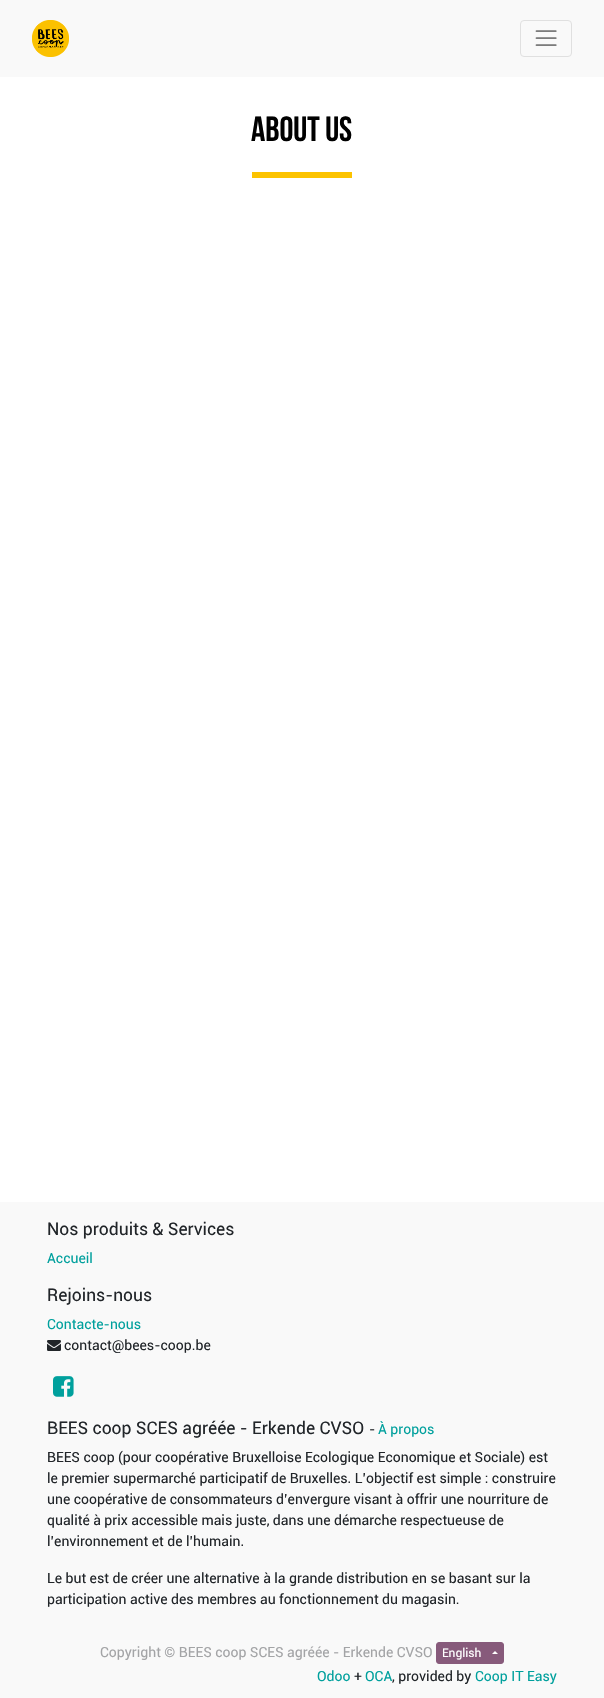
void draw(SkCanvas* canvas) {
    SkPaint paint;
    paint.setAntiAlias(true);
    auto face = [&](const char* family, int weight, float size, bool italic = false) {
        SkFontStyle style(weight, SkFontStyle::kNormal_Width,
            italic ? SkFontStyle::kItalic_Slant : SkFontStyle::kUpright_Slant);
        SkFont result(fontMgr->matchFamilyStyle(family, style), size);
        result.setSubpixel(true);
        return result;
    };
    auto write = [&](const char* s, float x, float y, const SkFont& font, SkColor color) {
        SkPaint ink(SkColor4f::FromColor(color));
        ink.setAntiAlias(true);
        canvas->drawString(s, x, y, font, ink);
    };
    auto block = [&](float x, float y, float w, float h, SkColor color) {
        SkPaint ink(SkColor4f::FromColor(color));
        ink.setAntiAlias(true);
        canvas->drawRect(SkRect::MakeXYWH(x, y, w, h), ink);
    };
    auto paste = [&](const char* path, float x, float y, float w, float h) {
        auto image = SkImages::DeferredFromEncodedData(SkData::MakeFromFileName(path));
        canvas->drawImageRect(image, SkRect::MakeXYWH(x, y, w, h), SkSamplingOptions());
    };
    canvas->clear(SK_ColorWHITE);
    block(0, 0, 604, 77, SkColorSetRGB(249, 249, 249));
    paste("pic1.png", 32, 20, 37, 37);
    paint.setStyle(SkPaint::kStroke_Style);
    paint.setStrokeWidth(1);
    paint.setColor(SkColorSetRGB(224, 224, 224));
    canvas->drawRoundRect(SkRect::MakeXYWH(520.5f, 20.5f, 51, 36), 3.5f, 3.5f, paint);
    paste("pic2.png", 535, 30, 22, 16);
    auto kFont1 = face("Bebas Neue", 700, 35);
    write("About us", 251, 141, kFont1, SK_ColorBLACK);
    block(252, 172, 100, 6, SkColorSetRGB(252, 195, 0));
    block(0, 1202, 604, 496, SkColorSetRGB(249, 249, 249));
    auto kFont2 = face("Roboto", 400, 17.5f);
    write("Nos produits & Services", 47, 1235, kFont2, SkColorSetRGB(33, 37, 41));
    auto kFont3 = face("Roboto", 400, 14);
    write("Accueil", 47, 1263, kFont3, SkColorSetRGB(0, 160, 157));
    write("Rejoins-nous", 47, 1301, kFont2, SkColorSetRGB(33, 37, 41));
    write("Contacte-nous", 47, 1329, kFont3, SkColorSetRGB(0, 160, 157));
    paste("pic3.png", 47, 1340, 14, 11);
    write("contact@bees-coop.be", 64, 1350, kFont3, SkColorSetRGB(33, 37, 41));
    paste("pic4.png", 53, 1376, 21, 21);
    write("BEES coop SCES agréée - Erkende CVSO", 47, 1434, kFont2, SkColorSetRGB(33, 37, 41));
    write("-", 369, 1434, kFont3, SkColorSetRGB(33, 37, 41));
    write("À propos", 378, 1434, kFont3, SkColorSetRGB(0, 160, 157));
    write("BEES coop (pour coopérative Bruxelloise Ecologique Economique et Sociale) est", 47, 1462, kFont3, SkColorSetRGB(33, 37, 41));
    write("le premier supermarché participatif de Bruxelles. L’objectif est simple : construire", 47, 1483, kFont3, SkColorSetRGB(33, 37, 41));
    write("une coopérative de consommateurs d’envergure visant à offrir une nourriture de", 47, 1504, kFont3, SkColorSetRGB(33, 37, 41));
    write("qualité à prix accessible mais juste, dans une démarche respectueuse de", 47, 1525, kFont3, SkColorSetRGB(33, 37, 41));
    write("l’environnement et de l’humain.", 47, 1546, kFont3, SkColorSetRGB(33, 37, 41));
    write("Le but est de créer une alternative à la grande distribution en se basant sur la", 47, 1583, kFont3, SkColorSetRGB(33, 37, 41));
    write("participation active des membres au fonctionnement du magasin.", 47, 1604, kFont3, SkColorSetRGB(33, 37, 41));
    write("Copyright © BEES coop SCES agréée - Erkende CVSO", 100, 1657, kFont3, SkColorSetRGB(163, 164, 166));
    paint.setStyle(SkPaint::kFill_Style);
    paint.setColor(SkColorSetRGB(135, 90, 123));
    canvas->drawRoundRect(SkRect::MakeXYWH(436.5f, 1642.5f, 67, 21), 2.5f, 2.5f, paint);
    paint.setStyle(SkPaint::kStroke_Style);
    canvas->drawRoundRect(SkRect::MakeXYWH(436.5f, 1642.5f, 67, 21), 2.5f, 2.5f, paint);
    auto kFont4 = face("Roboto", 400, 12);
    write("English", 442, 1657, kFont4, SK_ColorWHITE);
    paint.setStyle(SkPaint::kFill_Style);
    paint.setColor(SK_ColorWHITE);
    canvas->drawPath(SkPathBuilder().moveTo(498, 1654).lineTo(492, 1654).lineTo(495, 1651).close().detach(), paint);
    write("Odoo", 317, 1681, kFont3, SkColorSetRGB(0, 160, 157));
    write("+", 354, 1681, kFont3, SkColorSetRGB(33, 37, 41));
    write("OCA", 365, 1681, kFont3, SkColorSetRGB(0, 160, 157));
    write(", provided by", 392, 1681, kFont3, SkColorSetRGB(33, 37, 41));
    write("Coop IT Easy", 475, 1681, kFont3, SkColorSetRGB(0, 160, 157));
}
